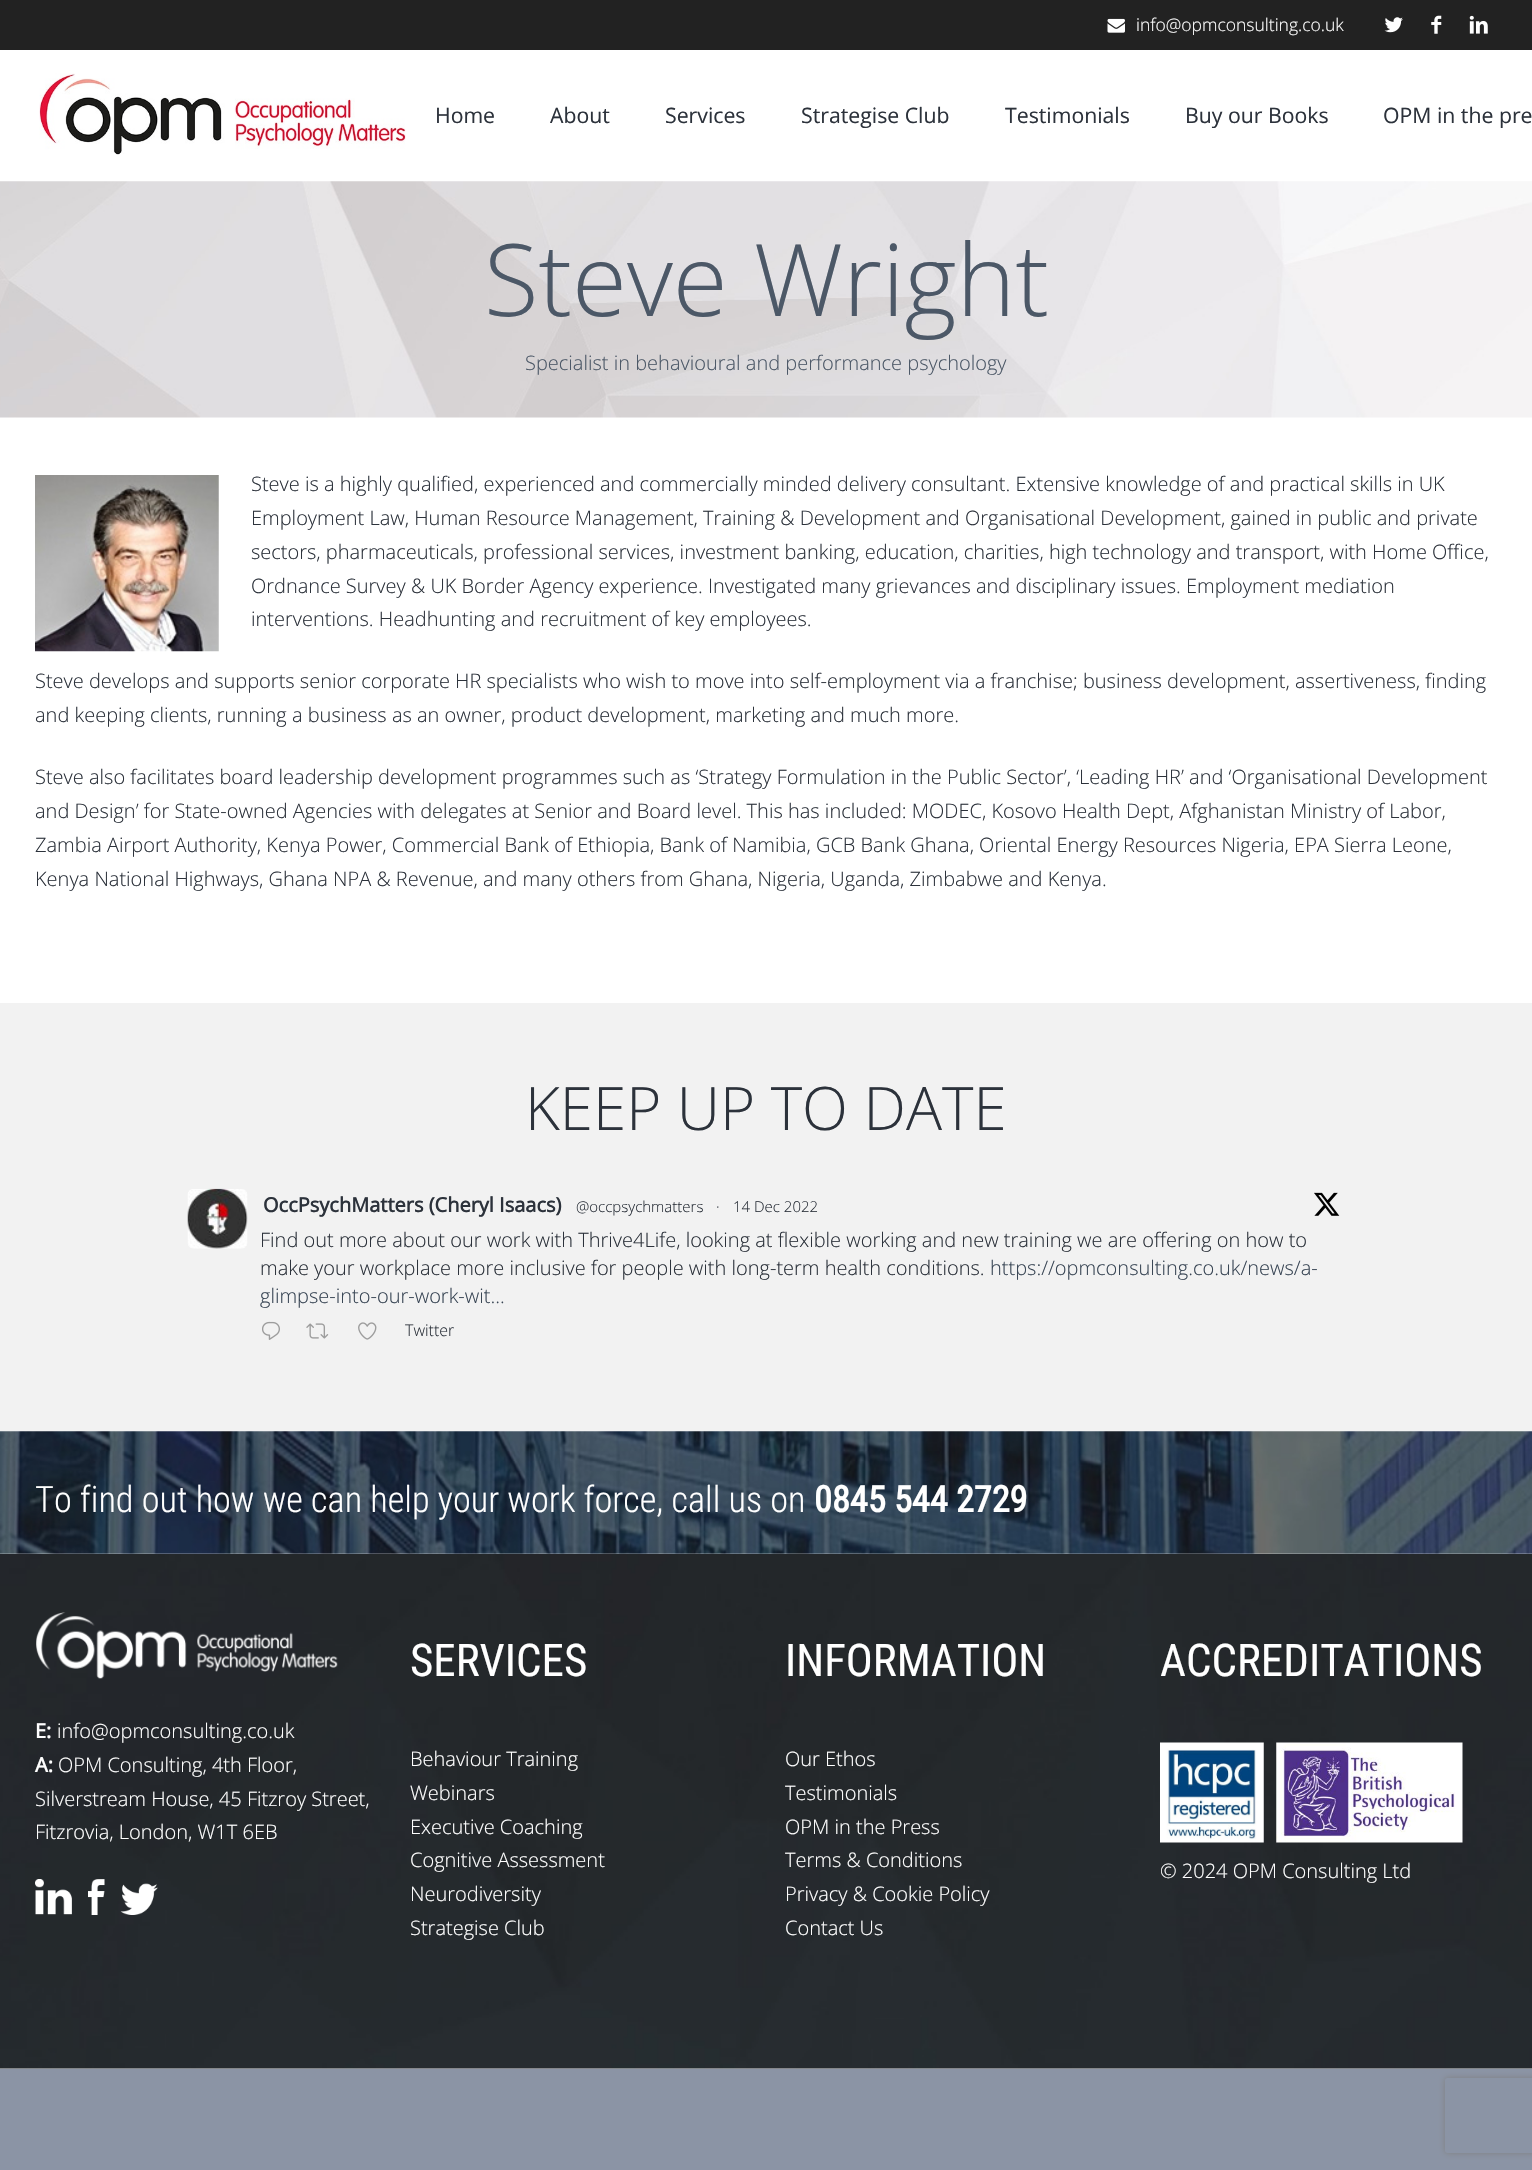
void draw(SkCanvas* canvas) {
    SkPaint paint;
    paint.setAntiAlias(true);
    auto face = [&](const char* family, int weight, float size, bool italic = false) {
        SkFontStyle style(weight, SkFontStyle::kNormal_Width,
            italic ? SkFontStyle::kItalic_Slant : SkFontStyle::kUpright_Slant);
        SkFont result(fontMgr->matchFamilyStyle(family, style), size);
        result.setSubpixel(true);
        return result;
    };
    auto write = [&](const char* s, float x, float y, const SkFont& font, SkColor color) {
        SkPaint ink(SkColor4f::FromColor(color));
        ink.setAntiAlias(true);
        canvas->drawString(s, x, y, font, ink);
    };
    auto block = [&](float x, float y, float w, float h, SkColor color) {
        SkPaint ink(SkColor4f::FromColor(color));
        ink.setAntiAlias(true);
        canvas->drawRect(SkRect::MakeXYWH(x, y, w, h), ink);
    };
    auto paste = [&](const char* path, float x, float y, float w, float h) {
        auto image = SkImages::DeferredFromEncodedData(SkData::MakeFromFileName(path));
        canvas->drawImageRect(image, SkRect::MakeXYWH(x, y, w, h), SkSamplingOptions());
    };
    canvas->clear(SkColorSetRGB(139, 148, 165));
    block(0, 0, 1532, 50, SkColorSetRGB(34, 34, 34));
    paste("pic1.png", 1107, 18, 18, 15);
    auto kFont1 = face("Open Sans", 300, 17.5f);
    write("info@opmconsulting.co.uk", 1136, 31, kFont1, SK_ColorWHITE);
    paste("pic2.png", 1384, 17, 19, 16);
    paste("pic3.png", 1431, 15, 11, 19);
    paste("pic4.png", 1469, 15, 19, 19);
    block(0, 50, 1532, 1504, SK_ColorWHITE);
    paste("pic5.png", 39, 73, 367, 82);
    auto kFont2 = face("Open Sans", 400, 21.25f);
    write("Home", 435, 123, kFont2, SkColorSetRGB(44, 50, 59));
    write("About", 550, 123, kFont2, SkColorSetRGB(44, 50, 59));
    write("Services", 665, 123, kFont2, SkColorSetRGB(44, 50, 59));
    write("Strategise Club", 801, 123, kFont2, SkColorSetRGB(44, 50, 59));
    write("Testimonials", 1005, 123, kFont2, SkColorSetRGB(44, 50, 59));
    write("Buy our Books", 1185, 123, kFont2, SkColorSetRGB(44, 50, 59));
    write("OPM in the pre", 1383, 123, kFont2, SkColorSetRGB(44, 50, 59));
    paste("pic6.png", 0, 181, 1532, 237);
    auto kFont3 = face("Open Sans", 300, 100);
    write("Steve Wright", 484, 316, kFont3, SkColorSetRGB(76, 88, 103));
    auto kFont4 = face("Open Sans", 300, 20);
    write("Specialist in behavioural and performance psychology", 525, 370, kFont4, SkColorSetRGB(76, 88, 103));
    paste("pic7.png", 35, 475, 184, 177);
    write("Steve is a highly qualified, experienced and commercially minded delivery consultant. Extensive knowledge of and practical skills in UK", 251, 491, kFont4, SkColorSetRGB(44, 50, 59));
    write("Employment Law, Human Resource Management, Training & Development and Organisational Development, gained in public and private", 251, 525, kFont4, SkColorSetRGB(44, 50, 59));
    write("sectors, pharmaceuticals, professional services, investment banking, education, charities, high technology and transport, with Home Office,", 251, 559, kFont4, SkColorSetRGB(44, 50, 59));
    write("Ordnance Survey & UK Border Agency experience. Investigated many grievances and disciplinary issues. Employment mediation", 251, 593, kFont4, SkColorSetRGB(44, 50, 59));
    write("interventions. Headhunting and recruitment of key employees.", 251, 626, kFont4, SkColorSetRGB(44, 50, 59));
    write("Steve develops and supports senior corporate HR specialists who wish to move into self-employment via a franchise; business development, assertiveness, finding", 35, 688, kFont4, SkColorSetRGB(44, 50, 59));
    write("and keeping clients, running a business as an owner, product development, marketing and much more.", 35, 722, kFont4, SkColorSetRGB(44, 50, 59));
    write("Steve also facilitates board leadership development programmes such as ‘Strategy Formulation in the Public Sector’, ‘Leading HR’ and ‘Organisational Development", 35, 784, kFont4, SkColorSetRGB(44, 50, 59));
    write("and Design’ for State-owned Agencies with delegates at Senior and Board level. This has included: MODEC, Kosovo Health Dept, Afghanistan Ministry of Labor,", 35, 818, kFont4, SkColorSetRGB(44, 50, 59));
    write("Zambia Airport Authority, Kenya Power, Commercial Bank of Ethiopia, Bank of Namibia, GCB Bank Ghana, Oriental Energy Resources Nigeria, EPA Sierra Leone,", 35, 852, kFont4, SkColorSetRGB(44, 50, 59));
    write("Kenya National Highways, Ghana NPA & Revenue, and many others from Ghana, Nigeria, Uganda, Zimbabwe and Kenya.", 35, 886, kFont4, SkColorSetRGB(44, 50, 59));
    block(0, 1003, 1532, 428, SkColorSetRGB(242, 242, 242));
    auto kFont5 = face("Open Sans", 300, 60);
    write("KEEP UP TO DATE", 525, 1130, kFont5, SkColorSetRGB(44, 50, 59));
    paste("pic8.png", 187, 1188, 61, 61);
    auto kFont6 = face("Open Sans", 700, 20);
    write("OccPsychMatters (Cheryl Isaacs)", 263, 1212, kFont6, SkColorSetRGB(44, 50, 59));
    auto kFont7 = face("Open Sans", 300, 15);
    write("@occpsychmatters", 576, 1212, kFont7, SkColorSetRGB(44, 50, 59));
    write("·", 716, 1212, kFont7, SkColorSetRGB(44, 50, 59));
    write("14 Dec 2022", 733, 1212, kFont7, SkColorSetRGB(44, 50, 59));
    paste("pic9.png", 1314, 1192, 26, 24);
    write("Find out more about our work with Thrive4Life, looking at flexible working and new training we are offering on how to", 260, 1247, kFont4, SkColorSetRGB(44, 50, 59));
    write("make your workplace more inclusive for people with long-term health conditions.", 260, 1275, kFont4, SkColorSetRGB(44, 50, 59));
    write("https://opmconsulting.co.uk/news/a-", 990, 1275, kFont4, SkColorSetRGB(56, 69, 84));
    write("glimpse-into-our-work-wit...", 260, 1303, kFont4, SkColorSetRGB(56, 69, 84));
    paste("pic10.png", 262, 1321, 18, 19);
    paste("pic11.png", 306, 1323, 23, 16);
    paste("pic12.png", 358, 1322, 19, 18);
    auto kFont8 = face("Open Sans", 300, 16);
    write("Twitter", 405, 1336, kFont8, SkColorSetRGB(44, 50, 59));
    paste("pic13.png", 0, 1431, 1532, 123);
    auto kFont9 = face("Roboto Condensed", 300, 36.25f);
    write("To find out how we can help your work force, call us on", 35, 1512, kFont9, SK_ColorWHITE);
    auto kFont10 = face("Roboto Condensed", 700, 36.25f);
    write("0845 544 2729", 814, 1512, kFont10, SK_ColorWHITE);
    block(0, 2068, 1532, 1, SK_ColorWHITE);
    paste("pic14.png", 0, 1554, 1532, 515);
    paste("pic15.png", 36, 1612, 302, 67);
    write("E:", 35, 1738, kFont6, SK_ColorWHITE);
    write("info@opmconsulting.co.uk", 57, 1738, kFont4, SK_ColorWHITE);
    write("A:", 35, 1772, kFont6, SK_ColorWHITE);
    write("OPM Consulting, 4th Floor,", 58, 1772, kFont4, SK_ColorWHITE);
    write("Silverstream House, 45 Fitzroy Street,", 35, 1806, kFont4, SK_ColorWHITE);
    write("Fitzrovia, London, W1T 6EB", 35, 1839, kFont4, SK_ColorWHITE);
    paste("pic16.png", 35, 1879, 37, 36);
    paste("pic17.png", 88, 1879, 17, 36);
    paste("pic18.png", 120, 1883, 38, 32);
    auto kFont11 = face("Roboto Condensed", 400, 45);
    write("SERVICES", 410, 1676, kFont11, SK_ColorWHITE);
    write("Behaviour Training", 410, 1766, kFont4, SK_ColorWHITE);
    write("Webinars", 410, 1800, kFont4, SK_ColorWHITE);
    write("Executive Coaching", 410, 1834, kFont4, SK_ColorWHITE);
    write("Cognitive Assessment", 410, 1867, kFont4, SK_ColorWHITE);
    write("Neurodiversity", 410, 1901, kFont4, SK_ColorWHITE);
    write("Strategise Club", 410, 1935, kFont4, SK_ColorWHITE);
    write("INFORMATION", 785, 1676, kFont11, SK_ColorWHITE);
    write("Our Ethos", 785, 1766, kFont4, SK_ColorWHITE);
    write("Testimonials", 785, 1800, kFont4, SK_ColorWHITE);
    write("OPM in the Press", 785, 1834, kFont4, SK_ColorWHITE);
    write("Terms & Conditions", 785, 1867, kFont4, SK_ColorWHITE);
    write("Privacy & Cookie Policy", 785, 1901, kFont4, SK_ColorWHITE);
    write("Contact Us", 785, 1935, kFont4, SK_ColorWHITE);
    write("ACCREDITATIONS", 1160, 1676, kFont11, SK_ColorWHITE);
    paste("pic19.png", 1160, 1742, 104, 101);
    paste("pic20.png", 1276, 1742, 187, 101);
    write("© 2024 OPM Consulting Ltd", 1160, 1878, kFont4, SK_ColorWHITE);
    canvas->save();
    canvas->clipPath(SkPathBuilder(SkPathFillType::kEvenOdd).moveTo(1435, 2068).lineTo(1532, 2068).lineTo(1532, 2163).lineTo(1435, 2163).close().moveTo(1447.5f, 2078).lineTo(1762.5f, 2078).cubicTo(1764, 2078, 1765, 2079, 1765, 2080.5f).lineTo(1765, 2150.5f).cubicTo(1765, 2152, 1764, 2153, 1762.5f, 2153).lineTo(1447.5f, 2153).cubicTo(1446, 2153, 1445, 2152, 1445, 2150.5f).lineTo(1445, 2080.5f).cubicTo(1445, 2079, 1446, 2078, 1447.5f, 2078).close().detach(), true);
    paint.setColor(SkColorSetRGB(128, 128, 128));
    paint.setMaskFilter(SkMaskFilter::MakeBlur(kNormal_SkBlurStyle, 3));
    canvas->drawRoundRect(SkRect::MakeXYWH(1445, 2078, 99, 75), 2.5f, 2.5f, paint);
    paint.setMaskFilter(nullptr);
    canvas->restore();
}
